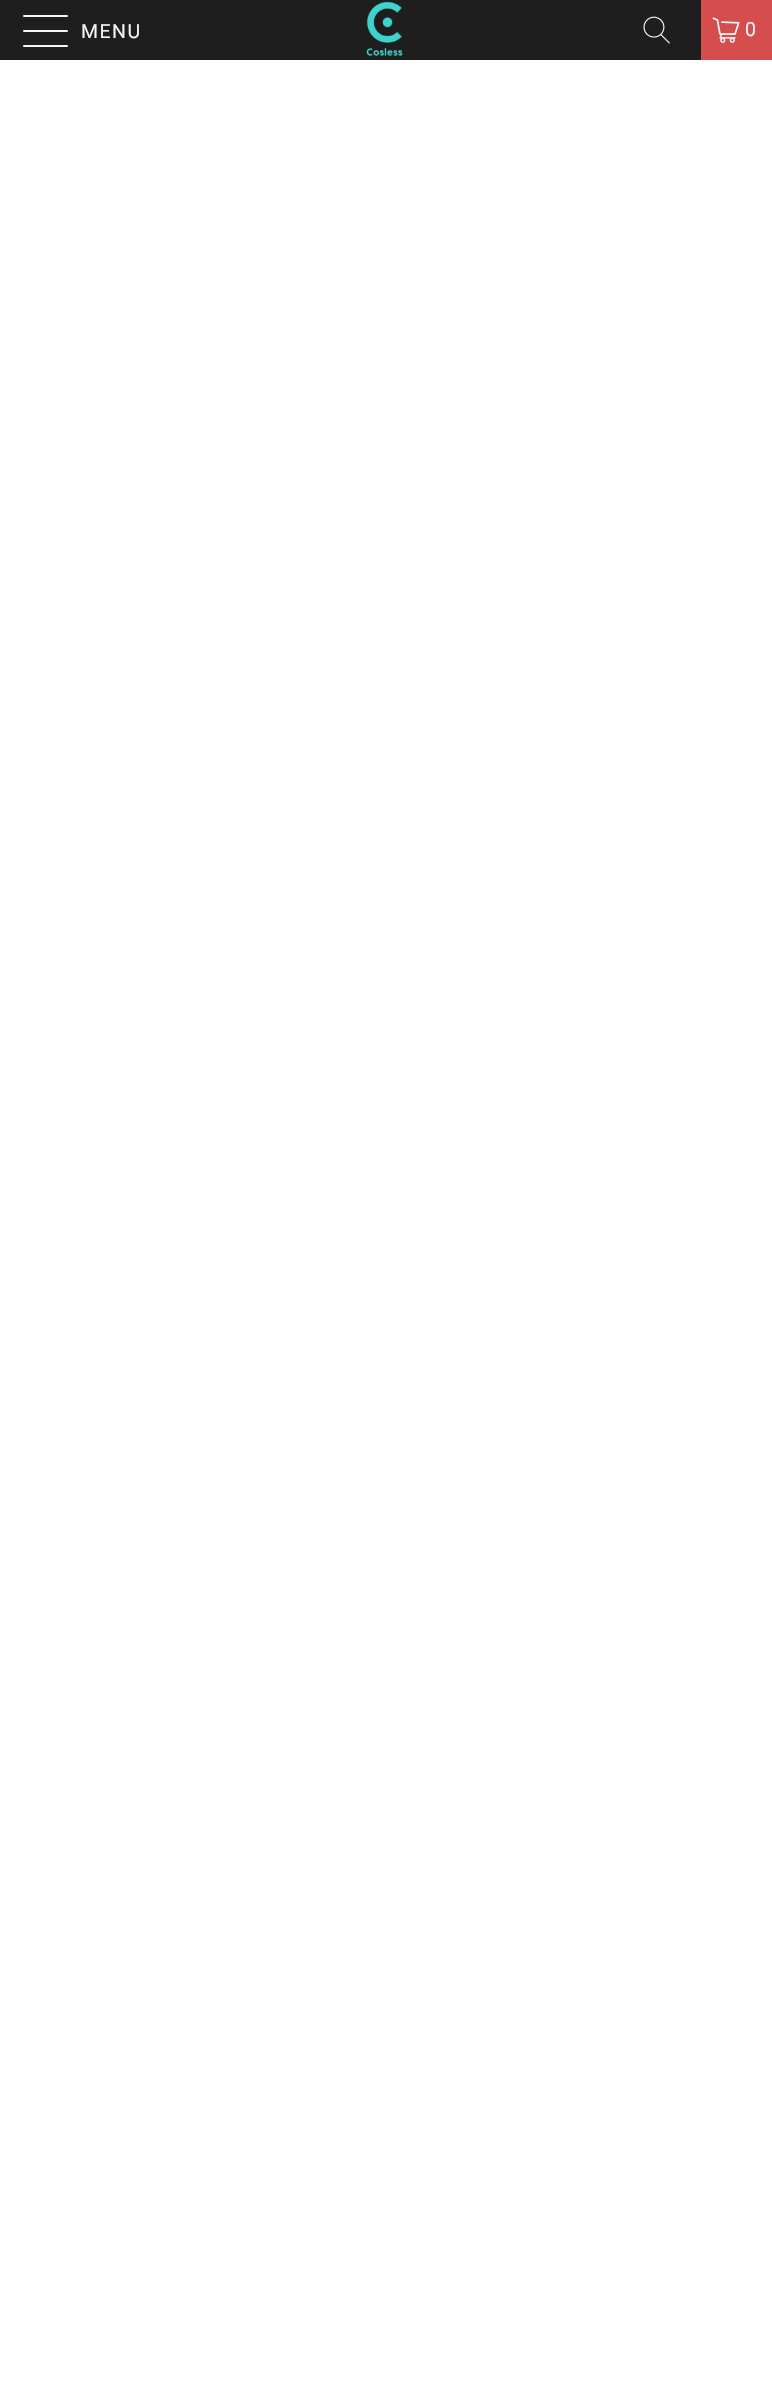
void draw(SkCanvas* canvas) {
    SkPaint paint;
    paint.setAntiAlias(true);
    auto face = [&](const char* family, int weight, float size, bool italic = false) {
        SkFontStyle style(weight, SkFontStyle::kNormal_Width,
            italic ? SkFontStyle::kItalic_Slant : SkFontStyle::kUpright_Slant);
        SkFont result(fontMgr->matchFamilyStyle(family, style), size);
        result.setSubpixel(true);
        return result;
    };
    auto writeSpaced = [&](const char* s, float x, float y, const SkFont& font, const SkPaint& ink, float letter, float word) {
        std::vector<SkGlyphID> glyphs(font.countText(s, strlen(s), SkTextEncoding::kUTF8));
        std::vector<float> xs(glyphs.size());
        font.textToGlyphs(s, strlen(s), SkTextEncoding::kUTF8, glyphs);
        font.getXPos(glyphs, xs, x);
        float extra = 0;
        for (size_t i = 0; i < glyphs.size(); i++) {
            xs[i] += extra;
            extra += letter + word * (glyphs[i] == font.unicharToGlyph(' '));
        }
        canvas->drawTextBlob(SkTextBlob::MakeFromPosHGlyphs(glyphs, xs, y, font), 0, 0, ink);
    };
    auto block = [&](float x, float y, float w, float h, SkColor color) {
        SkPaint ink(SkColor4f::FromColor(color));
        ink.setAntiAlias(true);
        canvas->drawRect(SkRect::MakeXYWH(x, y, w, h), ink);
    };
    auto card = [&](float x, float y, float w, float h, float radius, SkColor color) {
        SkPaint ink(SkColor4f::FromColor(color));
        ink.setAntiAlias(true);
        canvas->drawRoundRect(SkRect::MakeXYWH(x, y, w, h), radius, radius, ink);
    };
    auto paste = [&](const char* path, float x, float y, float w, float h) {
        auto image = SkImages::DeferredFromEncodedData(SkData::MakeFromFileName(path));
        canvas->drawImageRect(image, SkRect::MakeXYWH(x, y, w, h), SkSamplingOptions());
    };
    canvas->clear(SK_ColorWHITE);
    block(0, 0, 701, 60, SkColorSetRGB(30, 30, 30));
    card(23, 15, 45, 2, 1, SkColorSetRGB(244, 244, 244));
    card(23, 30, 45, 2, 1, SkColorSetRGB(244, 244, 244));
    card(23, 45, 45, 2, 1, SkColorSetRGB(244, 244, 244));
    auto kFont1 = face("Roboto", 400, 19.5f);
    paint.setColor(SkColorSetRGB(244, 244, 244));
    writeSpaced("MENU", 81, 38, kFont1, paint, 1.5f, 0);
    paste("pic1.png", 366, 1, 37, 55);
    paste("pic2.png", 643, 16, 27, 28);
    block(701, 0, 71, 60, SkColorSetRGB(213, 77, 77));
    paste("pic3.png", 712, 17, 28, 26);
    writeSpaced("0", 745, 36, kFont1, paint, 1.5f, 0);
}
